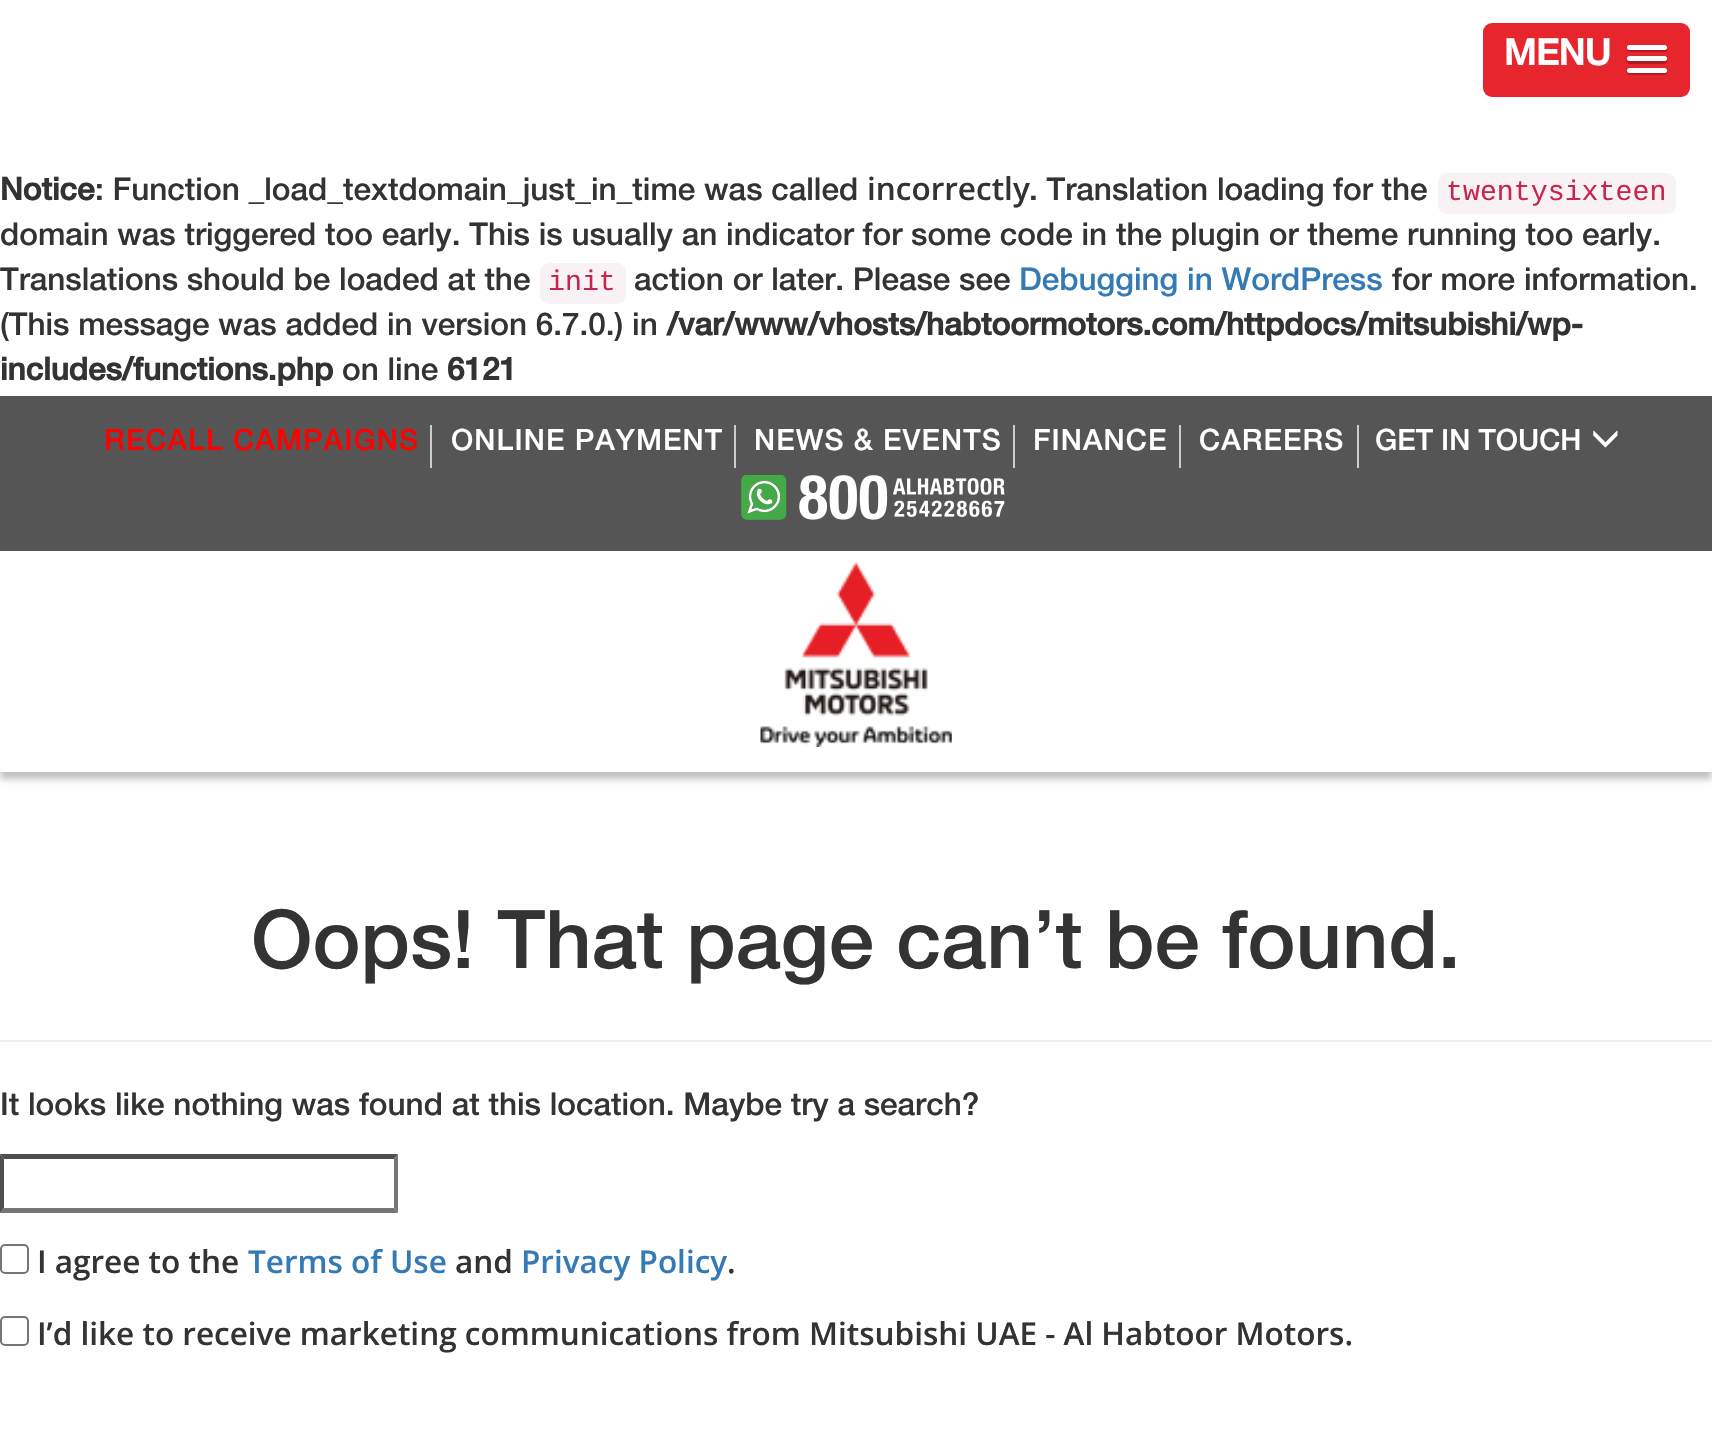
void draw(SkCanvas* canvas) {
    SkPaint paint;
    paint.setAntiAlias(true);
    auto face = [&](const char* family, int weight, float size, bool italic = false) {
        SkFontStyle style(weight, SkFontStyle::kNormal_Width,
            italic ? SkFontStyle::kItalic_Slant : SkFontStyle::kUpright_Slant);
        SkFont result(fontMgr->matchFamilyStyle(family, style), size);
        result.setSubpixel(true);
        return result;
    };
    auto write = [&](const char* s, float x, float y, const SkFont& font, SkColor color) {
        SkPaint ink(SkColor4f::FromColor(color));
        ink.setAntiAlias(true);
        canvas->drawString(s, x, y, font, ink);
    };
    auto writeSpaced = [&](const char* s, float x, float y, const SkFont& font, const SkPaint& ink, float letter, float word) {
        std::vector<SkGlyphID> glyphs(font.countText(s, strlen(s), SkTextEncoding::kUTF8));
        std::vector<float> xs(glyphs.size());
        font.textToGlyphs(s, strlen(s), SkTextEncoding::kUTF8, glyphs);
        font.getXPos(glyphs, xs, x);
        float extra = 0;
        for (size_t i = 0; i < glyphs.size(); i++) {
            xs[i] += extra;
            extra += letter + word * (glyphs[i] == font.unicharToGlyph(' '));
        }
        canvas->drawTextBlob(SkTextBlob::MakeFromPosHGlyphs(glyphs, xs, y, font), 0, 0, ink);
    };
    auto block = [&](float x, float y, float w, float h, SkColor color) {
        SkPaint ink(SkColor4f::FromColor(color));
        ink.setAntiAlias(true);
        canvas->drawRect(SkRect::MakeXYWH(x, y, w, h), ink);
    };
    auto card = [&](float x, float y, float w, float h, float radius, SkColor color) {
        SkPaint ink(SkColor4f::FromColor(color));
        ink.setAntiAlias(true);
        canvas->drawRoundRect(SkRect::MakeXYWH(x, y, w, h), radius, radius, ink);
    };
    auto paste = [&](const char* path, float x, float y, float w, float h) {
        auto image = SkImages::DeferredFromEncodedData(SkData::MakeFromFileName(path));
        canvas->drawImageRect(image, SkRect::MakeXYWH(x, y, w, h), SkSamplingOptions());
    };
    canvas->clear(SK_ColorWHITE);
    card(1483, 23, 207, 74, 9, SkColorSetRGB(230, 37, 45));
    auto kFont1 = face("Helvetica Neue", 700, 36);
    write("MENU", 1504, 65, kFont1, SK_ColorWHITE);
    paint.setColor(SkColorSetRGB(173, 28, 34));
    canvas->drawPath(SkPathBuilder().moveTo(1627, 49).cubicTo(1625, 53, 1634, 52, 1635, 52).lineTo(1659, 52).cubicTo(1660, 52, 1669, 53, 1667, 49).lineTo(1665, 49).lineTo(1629, 49).close().detach(), paint);
    card(1627, 45, 40, 5, 2.5f, SK_ColorWHITE);
    canvas->drawPath(SkPathBuilder().moveTo(1627, 60).cubicTo(1624, 65, 1635, 64, 1635, 64).lineTo(1659, 64).cubicTo(1659, 64, 1670, 65, 1667, 60).cubicTo(1665, 61, 1629, 61, 1627, 60).close().detach(), paint);
    card(1627, 56, 40, 5, 2.5f, SK_ColorWHITE);
    canvas->drawPath(SkPathBuilder().moveTo(1627, 71).cubicTo(1625, 76, 1635, 75, 1635, 75).lineTo(1659, 75).cubicTo(1659, 75, 1669, 76, 1667, 71).cubicTo(1665, 73, 1629, 73, 1627, 71).close().detach(), paint);
    card(1627, 68, 40, 5, 2.5f, SK_ColorWHITE);
    auto kFont2 = face("Helvetica Neue", 700, 31.5f);
    write("Notice", 0, 200, kFont2, SkColorSetRGB(51, 51, 51));
    auto kFont3 = face("Helvetica Neue", 500, 31.5f);
    write(": Function _load_textdomain_just_in_time was called", 95, 200, kFont3, SkColorSetRGB(51, 51, 51));
    auto kFont4 = face("Open Sans", 600, 31.5f);
    write("incorrectly", 867, 200, kFont4, SkColorSetRGB(51, 51, 51));
    write(". Translation loading for the", 1029, 200, kFont3, SkColorSetRGB(51, 51, 51));
    card(1438, 173, 238, 41, 9, SkColorSetRGB(249, 242, 244));
    auto kFont5 = face("Liberation Mono", 400, 28.25f);
    write("twentysixteen", 1446, 200, kFont5, SkColorSetRGB(199, 37, 78));
    write("domain was triggered too early. This is usually an indicator for some code in the plugin or theme running too early.", 0, 245, kFont3, SkColorSetRGB(51, 51, 51));
    write("Translations should be loaded at the", 0, 290, kFont3, SkColorSetRGB(51, 51, 51));
    card(540, 263, 86, 41, 9, SkColorSetRGB(249, 242, 244));
    write("init", 548, 290, kFont5, SkColorSetRGB(199, 37, 78));
    write("action or later. Please see", 634, 290, kFont3, SkColorSetRGB(51, 51, 51));
    write("Debugging in WordPress", 1019, 290, kFont3, SkColorSetRGB(51, 122, 183));
    write("for more information.", 1392, 290, kFont3, SkColorSetRGB(51, 51, 51));
    write("(This message was added in version 6.7.0.) in", 0, 335, kFont3, SkColorSetRGB(51, 51, 51));
    write("/var/www/vhosts/habtoormotors.com/httpdocs/mitsubishi/wp-", 667, 335, kFont2, SkColorSetRGB(51, 51, 51));
    write("includes/functions.php", 0, 380, kFont2, SkColorSetRGB(51, 51, 51));
    write("on line", 342, 380, kFont3, SkColorSetRGB(51, 51, 51));
    write("6121", 447, 380, kFont2, SkColorSetRGB(51, 51, 51));
    block(0, 396, 1712, 155, SkColorSetRGB(85, 85, 85));
    block(430, 425, 2, 43, SkColorSetRGB(204, 204, 204));
    auto kFont6 = face("Helvetica Neue", 500, 29.25f);
    paint.setColor(SkColorSetRGB(255, 0, 0));
    writeSpaced("RECALL CAMPAIGNS", 104, 450, kFont6, paint, 1.1f, 0);
    block(734, 425, 2, 43, SkColorSetRGB(204, 204, 204));
    paint.setColor(SK_ColorWHITE);
    writeSpaced("ONLINE PAYMENT", 451, 450, kFont6, paint, 1.1f, 0);
    block(1013, 425, 2, 43, SkColorSetRGB(204, 204, 204));
    writeSpaced("NEWS & EVENTS", 754, 450, kFont6, paint, 1.1f, 0);
    block(1179, 425, 2, 43, SkColorSetRGB(204, 204, 204));
    writeSpaced("FINANCE", 1033, 450, kFont6, paint, 1.1f, 0);
    block(1357, 425, 2, 43, SkColorSetRGB(204, 204, 204));
    writeSpaced("CAREERS", 1199, 450, kFont6, paint, 1.1f, 0);
    write("GET IN TOUCH", 1375, 450, kFont6, SK_ColorWHITE);
    paste("pic1.png", 1593, 430, 25, 18);
    paste("pic2.png", 741, 475, 264, 45);
    canvas->save();
    canvas->clipPath(SkPathBuilder(SkPathFillType::kEvenOdd).moveTo(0, 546).lineTo(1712, 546).lineTo(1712, 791).lineTo(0, 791).close().moveTo(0, 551).lineTo(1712, 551).lineTo(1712, 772).lineTo(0, 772).close().detach(), true);
    paint.setColor(SkColorSetARGB(64, 0, 0, 0));
    paint.setMaskFilter(SkMaskFilter::MakeBlur(kNormal_SkBlurStyle, 3.5f));
    canvas->drawRect(SkRect::MakeXYWH(0, 558, 1712, 221), paint);
    paint.setMaskFilter(nullptr);
    canvas->restore();
    paste("pic3.png", 760, 562, 192, 185);
    block(0, 1040, 1712, 2, SkColorSetRGB(238, 238, 238));
    auto kFont7 = face("Helvetica Neue", 500, 81);
    write("Oops! That page can’t be found.", 251, 968, kFont7, SkColorSetRGB(51, 51, 51));
    write("It looks like nothing was found at this location. Maybe try a search?", 0, 1115, kFont3, SkColorSetRGB(51, 51, 51));
    paint.setColor(SkColorSetRGB(79, 79, 79));
    canvas->drawPath(SkPathBuilder().moveTo(0, 1154).lineTo(398, 1154).lineTo(394, 1159).lineTo(4, 1159).close().detach(), paint);
    paint.setColor(SkColorSetRGB(118, 118, 118));
    canvas->drawPath(SkPathBuilder().moveTo(398, 1154).lineTo(398, 1213).lineTo(394, 1208).lineTo(394, 1159).close().detach(), paint);
    canvas->drawPath(SkPathBuilder().moveTo(398, 1213).lineTo(0, 1213).lineTo(4, 1208).lineTo(394, 1208).close().detach(), paint);
    paint.setColor(SkColorSetRGB(79, 79, 79));
    canvas->drawPath(SkPathBuilder().moveTo(0, 1213).lineTo(0, 1154).lineTo(4, 1159).lineTo(4, 1208).close().detach(), paint);
    paint.setStyle(SkPaint::kStroke_Style);
    paint.setStrokeWidth(2);
    paint.setColor(SkColorSetRGB(118, 118, 118));
    canvas->drawRoundRect(SkRect::MakeXYWH(1, 1245, 27, 28), 4, 4, paint);
    write("I agree to the", 37, 1273, kFont4, SkColorSetRGB(51, 51, 51));
    write("Terms of Use", 248, 1273, kFont4, SkColorSetRGB(51, 122, 183));
    write("and", 455, 1273, kFont4, SkColorSetRGB(51, 51, 51));
    write("Privacy Policy", 521, 1273, kFont4, SkColorSetRGB(51, 122, 183));
    write(".", 727, 1273, kFont4, SkColorSetRGB(51, 51, 51));
    canvas->drawRoundRect(SkRect::MakeXYWH(1, 1317, 27, 28), 4, 4, paint);
    write("I’d like to receive marketing communications from Mitsubishi UAE - Al Habtoor Motors.", 37, 1345, kFont4, SkColorSetRGB(51, 51, 51));
}
